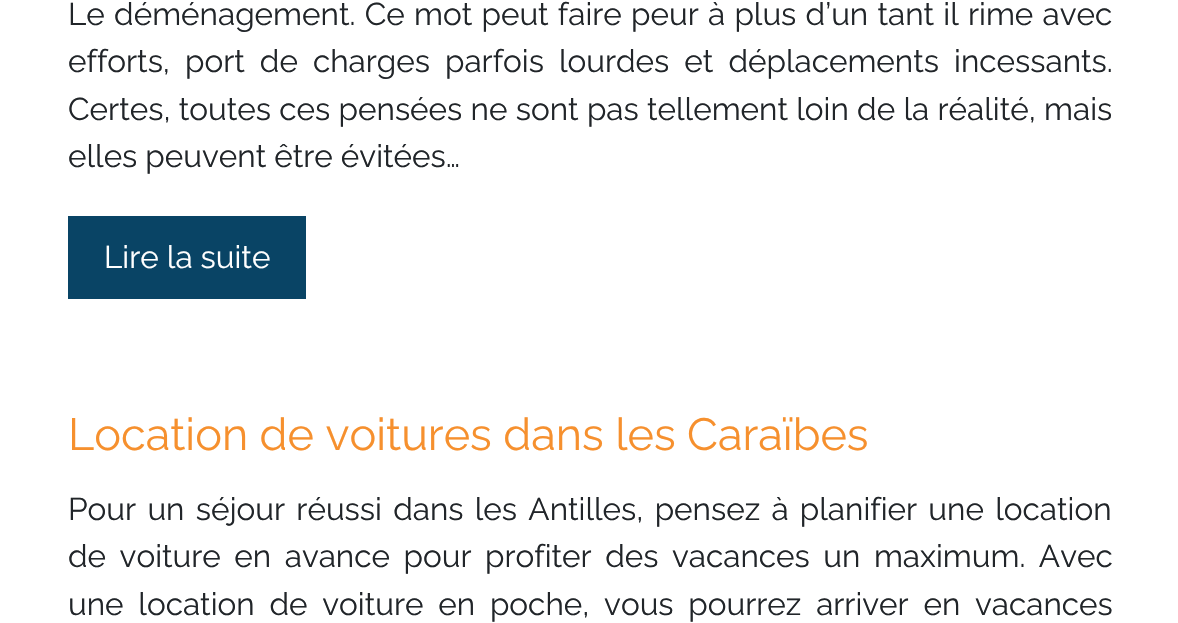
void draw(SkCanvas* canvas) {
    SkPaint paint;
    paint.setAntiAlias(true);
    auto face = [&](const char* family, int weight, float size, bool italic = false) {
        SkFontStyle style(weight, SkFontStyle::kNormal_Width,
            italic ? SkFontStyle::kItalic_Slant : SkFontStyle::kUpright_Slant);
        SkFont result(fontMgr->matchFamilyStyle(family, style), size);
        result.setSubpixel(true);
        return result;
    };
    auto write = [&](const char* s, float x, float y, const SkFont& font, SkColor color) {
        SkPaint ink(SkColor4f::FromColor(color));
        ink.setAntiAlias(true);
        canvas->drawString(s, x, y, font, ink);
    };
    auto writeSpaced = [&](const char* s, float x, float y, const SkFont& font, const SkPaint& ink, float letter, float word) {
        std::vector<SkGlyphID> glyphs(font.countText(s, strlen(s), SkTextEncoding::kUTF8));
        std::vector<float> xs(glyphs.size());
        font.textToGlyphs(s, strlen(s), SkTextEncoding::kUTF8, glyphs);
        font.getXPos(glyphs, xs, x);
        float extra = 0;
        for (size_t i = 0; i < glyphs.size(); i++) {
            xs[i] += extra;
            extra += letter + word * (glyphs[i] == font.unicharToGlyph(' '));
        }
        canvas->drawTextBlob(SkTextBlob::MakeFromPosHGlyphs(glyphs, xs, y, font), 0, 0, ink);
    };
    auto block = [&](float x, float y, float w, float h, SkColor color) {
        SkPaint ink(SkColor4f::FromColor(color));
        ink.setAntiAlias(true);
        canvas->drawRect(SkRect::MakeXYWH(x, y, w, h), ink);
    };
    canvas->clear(SK_ColorWHITE);
    auto kFont1 = face("Raleway", 400, 31.5f);
    paint.setColor(SkColorSetRGB(33, 37, 41));
    writeSpaced("Le déménagement. Ce mot peut faire peur à plus d’un tant il rime avec", 68, 25, kFont1, paint, 0, 1.2f);
    writeSpaced("efforts, port de charges parfois lourdes et déplacements incessants.", 68, 72, kFont1, paint, 0, 7);
    writeSpaced("Certes, toutes ces pensées ne sont pas tellement loin de la réalité, mais", 68, 120, kFont1, paint, 0, 0.25f);
    write("elles peuvent être évitées…", 68, 167, kFont1, SkColorSetRGB(33, 37, 41));
    block(68, 216, 238, 83, SkColorSetRGB(9, 68, 101));
    write("Lire la suite", 104, 268, kFont1, SK_ColorWHITE);
    auto kFont2 = face("Raleway", 400, 45);
    write("Location de voitures dans les Caraïbes", 68, 450, kFont2, SkColorSetRGB(246, 144, 46));
    writeSpaced("Pour un séjour réussi dans les Antilles, pensez à planifier une location", 68, 520, kFont1, paint, 0, 3.25f);
    writeSpaced("de voiture en avance pour profiter des vacances un maximum. Avec", 68, 567, kFont1, paint, 0, 5.5f);
    writeSpaced("une location de voiture en poche, vous pourrez arriver en vacances", 68, 615, kFont1, paint, 0, 6.75f);
}
